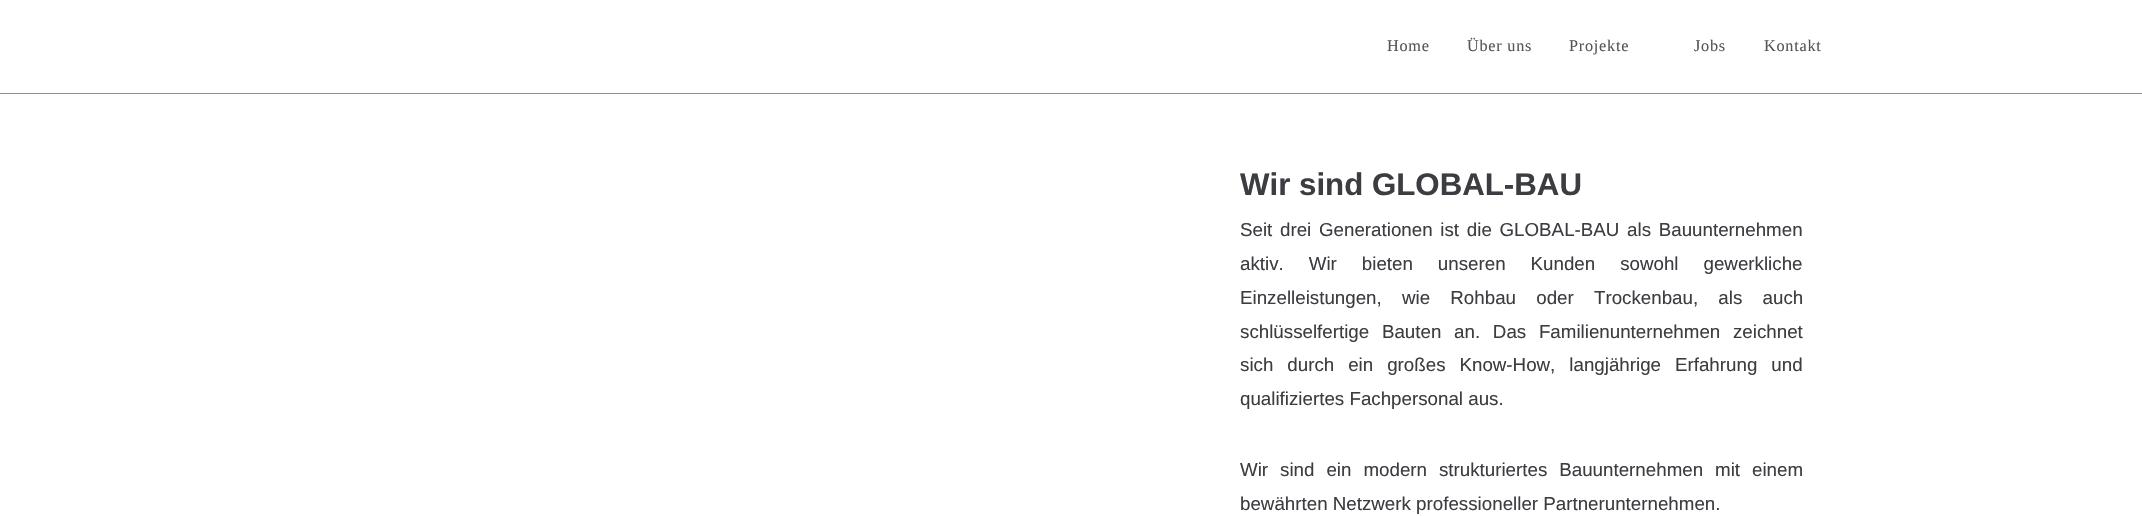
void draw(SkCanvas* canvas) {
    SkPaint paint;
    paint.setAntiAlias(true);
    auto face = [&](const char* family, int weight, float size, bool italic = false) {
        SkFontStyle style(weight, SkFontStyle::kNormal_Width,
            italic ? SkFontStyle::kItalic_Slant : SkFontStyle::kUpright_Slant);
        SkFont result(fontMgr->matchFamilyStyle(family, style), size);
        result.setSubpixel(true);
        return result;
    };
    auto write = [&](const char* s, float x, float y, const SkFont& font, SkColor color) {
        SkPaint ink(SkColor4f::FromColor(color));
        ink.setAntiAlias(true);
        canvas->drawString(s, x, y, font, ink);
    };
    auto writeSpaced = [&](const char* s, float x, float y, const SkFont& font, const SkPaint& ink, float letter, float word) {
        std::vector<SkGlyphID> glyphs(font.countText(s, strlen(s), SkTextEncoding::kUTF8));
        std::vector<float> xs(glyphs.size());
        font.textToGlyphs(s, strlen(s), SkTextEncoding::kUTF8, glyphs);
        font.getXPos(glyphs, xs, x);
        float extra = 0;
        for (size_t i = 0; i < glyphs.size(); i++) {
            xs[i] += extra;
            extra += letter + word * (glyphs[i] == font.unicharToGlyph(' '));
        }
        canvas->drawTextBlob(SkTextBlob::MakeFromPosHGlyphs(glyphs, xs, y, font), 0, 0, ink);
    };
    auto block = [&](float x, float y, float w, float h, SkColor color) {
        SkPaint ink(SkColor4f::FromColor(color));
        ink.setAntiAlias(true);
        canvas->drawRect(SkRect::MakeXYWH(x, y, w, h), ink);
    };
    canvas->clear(SK_ColorWHITE);
    block(0, 93, 2142, 1, SkColorSetRGB(62, 164, 255));
    auto kFont1 = face("Liberation Serif", 400, 16.25f);
    paint.setColor(SkColorSetRGB(85, 85, 85));
    writeSpaced("Home", 1387, 51, kFont1, paint, 0.75f, 0);
    writeSpaced("Über uns", 1467, 51, kFont1, paint, 0.75f, 0);
    writeSpaced("Projekte", 1569, 51, kFont1, paint, 0.75f, 0);
    writeSpaced("Jobs", 1694, 51, kFont1, paint, 0.75f, 0);
    writeSpaced("Kontakt", 1764, 51, kFont1, paint, 0.75f, 0);
    auto kFont2 = face("Liberation Sans", 700, 31.25f);
    write("Wir sind GLOBAL-BAU", 1240, 195, kFont2, SkColorSetRGB(59, 61, 65));
    auto kFont3 = face("Liberation Sans", 400, 18.75f);
    paint.setColor(SkColorSetRGB(59, 61, 65));
    writeSpaced("Seit drei Generationen ist die GLOBAL-BAU als Bauunternehmen", 1240, 236, kFont3, paint, 0, 2.5f);
    writeSpaced("aktiv. Wir bieten unseren Kunden sowohl gewerkliche", 1240, 270, kFont3, paint, 0, 19.75f);
    writeSpaced("Einzelleistungen, wie Rohbau oder Trockenbau, als auch", 1240, 304, kFont3, paint, 0, 15);
    writeSpaced("schlüsselfertige Bauten an. Das Familienunternehmen zeichnet", 1240, 338, kFont3, paint, 0, 7.5f);
    writeSpaced("sich durch ein großes Know-How, langjährige Erfahrung und", 1240, 371, kFont3, paint, 0, 8.75f);
    write("qualifiziertes Fachpersonal aus.", 1240, 405, kFont3, SkColorSetRGB(59, 61, 65));
    writeSpaced("Wir sind ein modern strukturiertes Bauunternehmen mit einem", 1240, 476, kFont3, paint, 0, 6.75f);
    write("bewährten Netzwerk professioneller Partnerunternehmen.", 1240, 510, kFont3, SkColorSetRGB(59, 61, 65));
}
